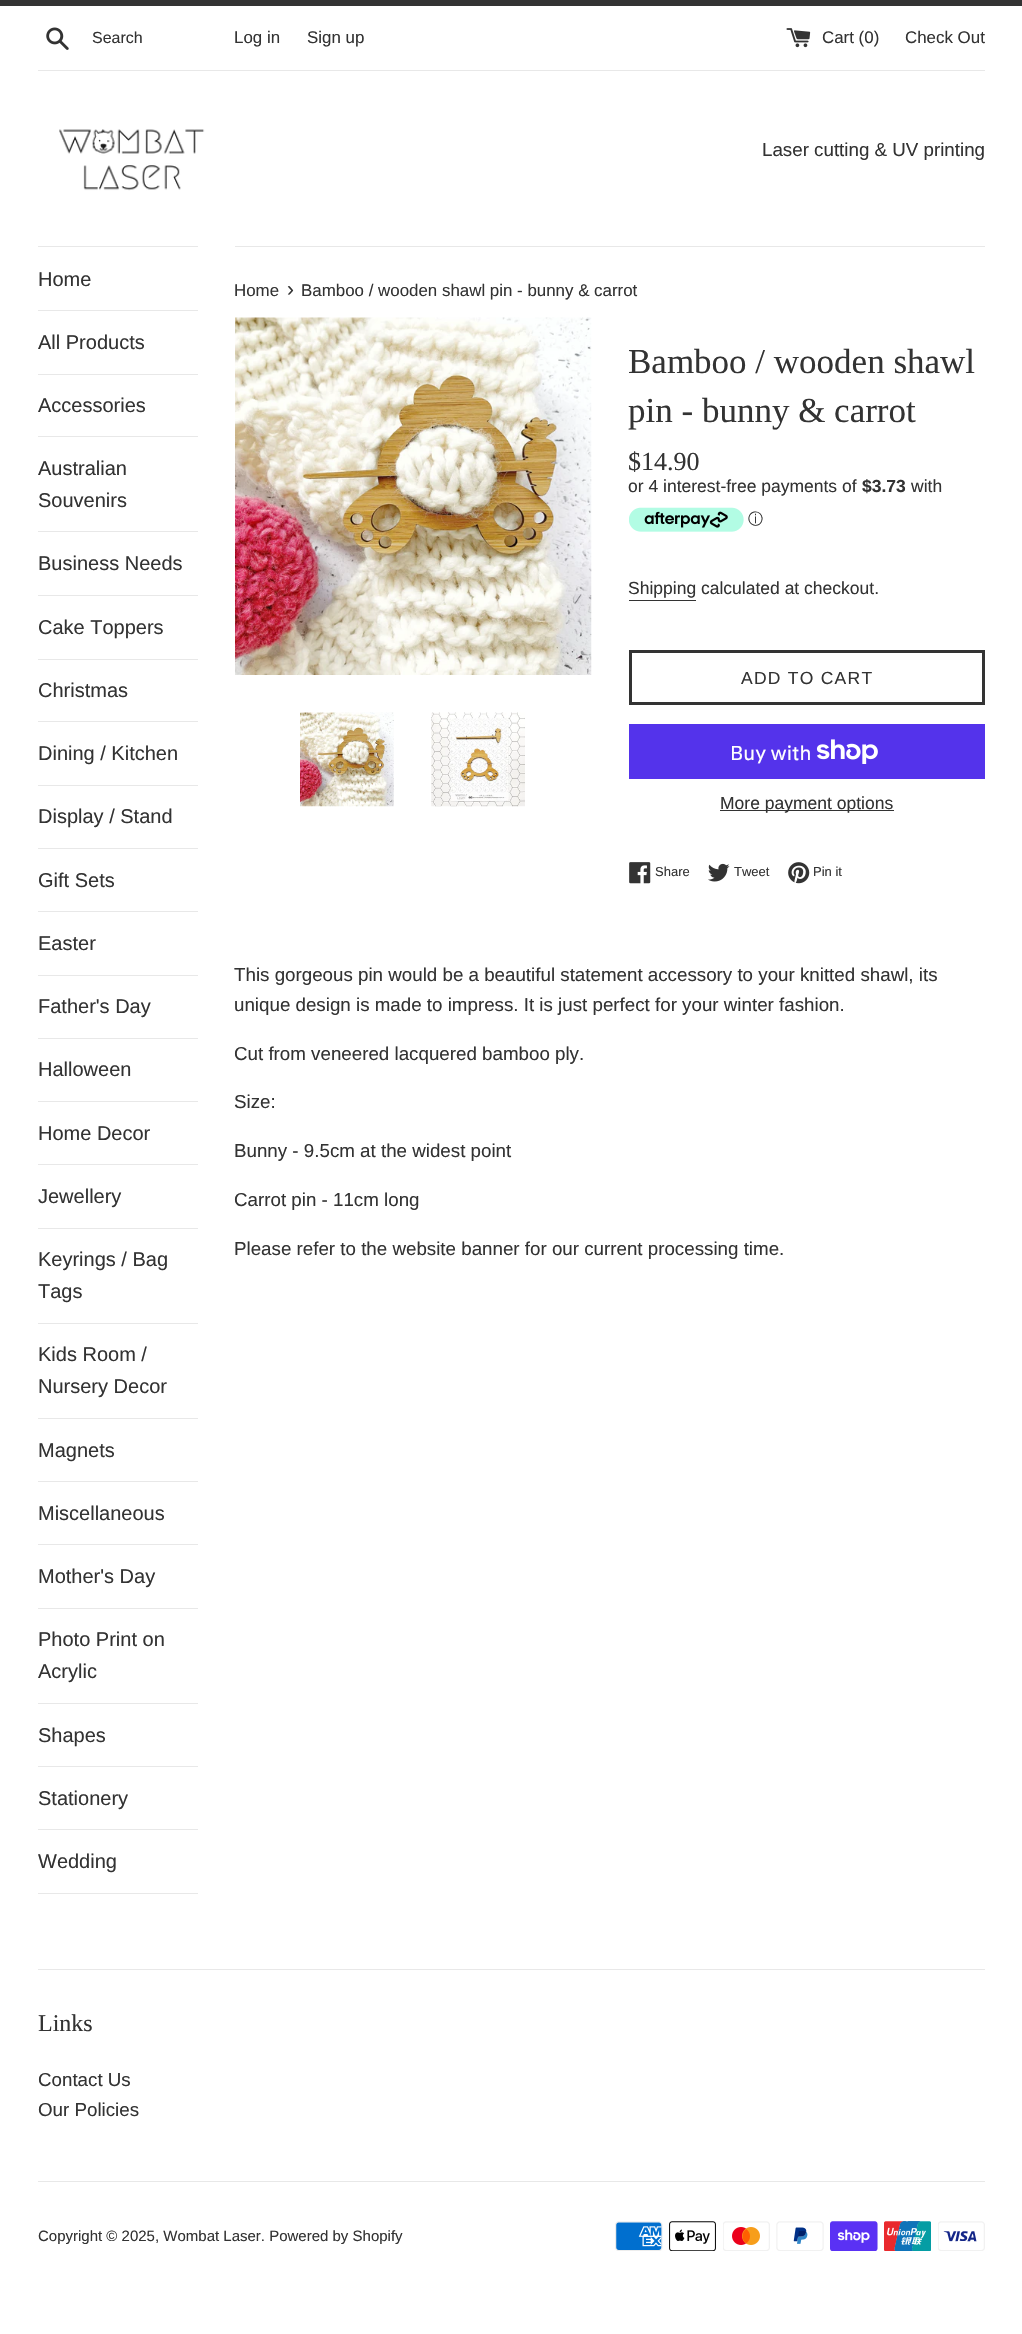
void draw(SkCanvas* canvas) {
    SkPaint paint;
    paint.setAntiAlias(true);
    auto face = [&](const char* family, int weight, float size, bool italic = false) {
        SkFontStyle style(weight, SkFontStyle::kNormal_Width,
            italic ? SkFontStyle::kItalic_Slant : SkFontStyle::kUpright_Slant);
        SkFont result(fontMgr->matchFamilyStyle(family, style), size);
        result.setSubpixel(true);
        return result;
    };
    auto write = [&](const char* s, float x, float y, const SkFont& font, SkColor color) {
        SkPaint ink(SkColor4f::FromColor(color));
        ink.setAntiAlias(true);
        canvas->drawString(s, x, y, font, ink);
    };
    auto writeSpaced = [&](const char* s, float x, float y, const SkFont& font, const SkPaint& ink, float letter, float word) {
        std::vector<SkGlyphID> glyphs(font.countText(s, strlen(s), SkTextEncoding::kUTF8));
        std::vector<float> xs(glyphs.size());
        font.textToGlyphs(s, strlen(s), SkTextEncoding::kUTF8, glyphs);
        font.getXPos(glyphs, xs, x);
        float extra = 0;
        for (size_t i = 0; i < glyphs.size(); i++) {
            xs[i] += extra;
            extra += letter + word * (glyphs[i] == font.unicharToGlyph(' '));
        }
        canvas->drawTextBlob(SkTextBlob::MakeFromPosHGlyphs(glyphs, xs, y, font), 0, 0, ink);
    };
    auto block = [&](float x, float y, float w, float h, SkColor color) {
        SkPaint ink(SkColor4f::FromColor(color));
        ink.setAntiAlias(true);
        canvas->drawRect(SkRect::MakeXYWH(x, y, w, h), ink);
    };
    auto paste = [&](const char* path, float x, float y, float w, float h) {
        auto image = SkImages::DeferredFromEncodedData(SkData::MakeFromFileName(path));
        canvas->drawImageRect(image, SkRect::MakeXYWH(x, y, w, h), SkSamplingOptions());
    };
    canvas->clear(SK_ColorWHITE);
    block(0, 0, 1022, 6, SkColorSetRGB(51, 51, 51));
    paste("pic1.png", 46, 27, 23, 23);
    auto kFont1 = face("Liberation Sans", 400, 16);
    write("Search", 92, 43, kFont1, SkColorSetRGB(51, 51, 51));
    auto kFont2 = face("Liberation Sans", 400, 16.9f);
    write("Log in", 234, 43, kFont2, SkColorSetRGB(51, 51, 51));
    write("Sign up", 307, 43, kFont2, SkColorSetRGB(51, 51, 51));
    paste("pic2.png", 786, 28, 25, 20);
    write("Cart (0)", 822, 43, kFont2, SkColorSetRGB(51, 51, 51));
    write("Check Out", 905, 43, kFont2, SkColorSetRGB(51, 51, 51));
    block(38, 70, 947, 1, SkColorSetRGB(232, 232, 232));
    paste("pic3.png", 59, 129, 146, 62);
    auto kFont3 = face("Liberation Sans", 400, 18.75f);
    write("Laser cutting & UV printing", 762, 156, kFont3, SkColorSetRGB(51, 51, 51));
    block(38, 246, 160, 1, SkColorSetRGB(232, 232, 232));
    block(38, 310, 160, 1, SkColorSetRGB(232, 232, 232));
    auto kFont4 = face("Liberation Sans", 400, 20);
    write("Home", 38, 286, kFont4, SkColorSetRGB(51, 51, 51));
    block(38, 374, 160, 1, SkColorSetRGB(232, 232, 232));
    write("All Products", 38, 349, kFont4, SkColorSetRGB(51, 51, 51));
    block(38, 436, 160, 1, SkColorSetRGB(232, 232, 232));
    write("Accessories", 38, 412, kFont4, SkColorSetRGB(51, 51, 51));
    block(38, 531, 160, 1, SkColorSetRGB(232, 232, 232));
    write("Australian", 38, 475, kFont4, SkColorSetRGB(51, 51, 51));
    write("Souvenirs", 38, 507, kFont4, SkColorSetRGB(51, 51, 51));
    block(38, 595, 160, 1, SkColorSetRGB(232, 232, 232));
    write("Business Needs", 38, 570, kFont4, SkColorSetRGB(51, 51, 51));
    block(38, 659, 160, 1, SkColorSetRGB(232, 232, 232));
    write("Cake Toppers", 38, 634, kFont4, SkColorSetRGB(51, 51, 51));
    block(38, 721, 160, 1, SkColorSetRGB(232, 232, 232));
    write("Christmas", 38, 697, kFont4, SkColorSetRGB(51, 51, 51));
    block(38, 785, 160, 1, SkColorSetRGB(232, 232, 232));
    write("Dining / Kitchen", 38, 760, kFont4, SkColorSetRGB(51, 51, 51));
    block(38, 848, 160, 1, SkColorSetRGB(232, 232, 232));
    write("Display / Stand", 38, 823, kFont4, SkColorSetRGB(51, 51, 51));
    block(38, 911, 160, 1, SkColorSetRGB(232, 232, 232));
    write("Gift Sets", 38, 887, kFont4, SkColorSetRGB(51, 51, 51));
    block(38, 975, 160, 1, SkColorSetRGB(232, 232, 232));
    write("Easter", 38, 950, kFont4, SkColorSetRGB(51, 51, 51));
    block(38, 1038, 160, 1, SkColorSetRGB(232, 232, 232));
    write("Father's Day", 38, 1013, kFont4, SkColorSetRGB(51, 51, 51));
    block(38, 1101, 160, 1, SkColorSetRGB(232, 232, 232));
    write("Halloween", 38, 1076, kFont4, SkColorSetRGB(51, 51, 51));
    block(38, 1164, 160, 1, SkColorSetRGB(232, 232, 232));
    write("Home Decor", 38, 1140, kFont4, SkColorSetRGB(51, 51, 51));
    block(38, 1228, 160, 1, SkColorSetRGB(232, 232, 232));
    write("Jewellery", 38, 1203, kFont4, SkColorSetRGB(51, 51, 51));
    block(38, 1323, 160, 1, SkColorSetRGB(232, 232, 232));
    write("Keyrings / Bag", 38, 1266, kFont4, SkColorSetRGB(51, 51, 51));
    write("Tags", 38, 1298, kFont4, SkColorSetRGB(51, 51, 51));
    block(38, 1418, 160, 1, SkColorSetRGB(232, 232, 232));
    write("Kids Room /", 38, 1361, kFont4, SkColorSetRGB(51, 51, 51));
    write("Nursery Decor", 38, 1393, kFont4, SkColorSetRGB(51, 51, 51));
    block(38, 1481, 160, 1, SkColorSetRGB(232, 232, 232));
    write("Magnets", 38, 1457, kFont4, SkColorSetRGB(51, 51, 51));
    block(38, 1544, 160, 1, SkColorSetRGB(232, 232, 232));
    write("Miscellaneous", 38, 1520, kFont4, SkColorSetRGB(51, 51, 51));
    block(38, 1608, 160, 1, SkColorSetRGB(232, 232, 232));
    write("Mother's Day", 38, 1583, kFont4, SkColorSetRGB(51, 51, 51));
    block(38, 1703, 160, 1, SkColorSetRGB(232, 232, 232));
    write("Photo Print on", 38, 1646, kFont4, SkColorSetRGB(51, 51, 51));
    write("Acrylic", 38, 1678, kFont4, SkColorSetRGB(51, 51, 51));
    block(38, 1766, 160, 1, SkColorSetRGB(232, 232, 232));
    write("Shapes", 38, 1742, kFont4, SkColorSetRGB(51, 51, 51));
    block(38, 1829, 160, 1, SkColorSetRGB(232, 232, 232));
    write("Stationery", 38, 1805, kFont4, SkColorSetRGB(51, 51, 51));
    block(38, 1893, 160, 1, SkColorSetRGB(232, 232, 232));
    write("Wedding", 38, 1868, kFont4, SkColorSetRGB(51, 51, 51));
    block(235, 246, 750, 1, SkColorSetRGB(232, 232, 232));
    write("Home", 234, 296, kFont2, SkColorSetRGB(51, 51, 51));
    auto kFont5 = face("Liberation Sans", 400, 21);
    write("›", 287, 296, kFont5, SkColorSetRGB(51, 51, 51));
    write("Bamboo / wooden shawl pin - bunny & carrot", 301, 296, kFont2, SkColorSetRGB(51, 51, 51));
    paste("pic4.png", 235, 317, 357, 358);
    paste("pic5.png", 300, 712, 94, 95);
    paste("pic6.png", 431, 712, 94, 95);
    auto kFont6 = face("Liberation Serif", 400, 35);
    write("Bamboo / wooden shawl", 628, 373, kFont6, SkColorSetRGB(51, 51, 51));
    write("pin - bunny & carrot", 628, 422, kFont6, SkColorSetRGB(51, 51, 51));
    auto kFont7 = face("Liberation Serif", 400, 26);
    write("$14.90", 628, 470, kFont7, SkColorSetRGB(51, 51, 51));
    auto kFont8 = face("Liberation Sans", 400, 17.5f);
    write("or 4 interest-free payments of", 628, 492, kFont8, SkColorSetRGB(51, 51, 51));
    auto kFont9 = face("Liberation Sans", 700, 17.5f);
    write("$3.73", 862, 492, kFont9, SkColorSetRGB(51, 51, 51));
    write("with", 911, 492, kFont8, SkColorSetRGB(51, 51, 51));
    paste("pic7.png", 629, 507, 115, 25);
    auto kFont10 = face("WenQuanYi Zen Hei", 500, 15);
    write("ⓘ", 748, 524, kFont10, SkColorSetRGB(51, 51, 51));
    write("Shipping calculated at checkout.", 628, 594, kFont8, SkColorSetRGB(51, 51, 51));
    block(629, 600, 67, 1, SkColorSetRGB(51, 51, 51));
    paint.setStyle(SkPaint::kStroke_Style);
    paint.setStrokeWidth(3);
    paint.setColor(SkColorSetRGB(51, 51, 51));
    canvas->drawRect(SkRect::MakeXYWH(630.5f, 651.5f, 353, 52), paint);
    paint.setStyle(SkPaint::kFill_Style);
    writeSpaced("ADD TO CART", 741, 684, kFont8, paint, 1.25f, 0);
    block(629, 724, 356, 55, SkColorSetRGB(84, 51, 235));
    auto kFont11 = face("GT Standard", 400, 20);
    write("Buy with", 730, 760, kFont11, SK_ColorWHITE);
    paste("pic8.png", 816, 739, 62, 25);
    block(720, 810, 174, 1, SkColorSetRGB(51, 51, 51));
    write("More payment options", 720, 809, kFont8, SkColorSetRGB(51, 51, 51));
    paste("pic9.png", 629, 862, 22, 22);
    auto kFont12 = face("Liberation Sans", 400, 13);
    write("Share", 655, 876, kFont12, SkColorSetRGB(51, 51, 51));
    paste("pic10.png", 708, 863, 22, 19);
    write("Tweet", 734, 876, kFont12, SkColorSetRGB(51, 51, 51));
    paste("pic11.png", 788, 862, 22, 22);
    write("Pin it", 813, 876, kFont12, SkColorSetRGB(51, 51, 51));
    write("This gorgeous pin would be a beautiful statement accessory to your knitted shawl, its", 234, 981, kFont3, SkColorSetRGB(51, 51, 51));
    write("unique design is made to impress. It is just perfect for your winter fashion.", 234, 1011, kFont3, SkColorSetRGB(51, 51, 51));
    write("Cut from veneered lacquered bamboo ply.", 234, 1060, kFont3, SkColorSetRGB(51, 51, 51));
    write("Size:", 234, 1108, kFont3, SkColorSetRGB(51, 51, 51));
    write("Bunny - 9.5cm at the widest point", 234, 1157, kFont3, SkColorSetRGB(51, 51, 51));
    write("Carrot pin - 11cm long", 234, 1206, kFont3, SkColorSetRGB(51, 51, 51));
    write("Please refer to the website banner for our current processing time.", 234, 1255, kFont3, SkColorSetRGB(51, 51, 51));
    block(38, 1969, 947, 1, SkColorSetRGB(232, 232, 232));
    auto kFont13 = face("Liberation Serif", 400, 24);
    write("Links", 38, 2031, kFont13, SkColorSetRGB(51, 51, 51));
    write("Contact Us", 38, 2086, kFont3, SkColorSetRGB(51, 51, 51));
    write("Our Policies", 38, 2116, kFont3, SkColorSetRGB(51, 51, 51));
    block(38, 2181, 947, 1, SkColorSetRGB(232, 232, 232));
    auto kFont14 = face("Liberation Sans", 400, 15);
    write("Copyright © 2025, Wombat Laser. Powered by Shopify", 38, 2241, kFont14, SkColorSetRGB(51, 51, 51));
    paste("pic12.png", 615, 2221, 48, 30);
    paste("pic13.png", 669, 2221, 47, 30);
    paste("pic14.png", 723, 2221, 47, 30);
    paste("pic15.png", 776, 2221, 48, 30);
    paste("pic16.png", 830, 2221, 48, 30);
    paste("pic17.png", 884, 2221, 47, 30);
    paste("pic18.png", 938, 2221, 47, 30);
}
